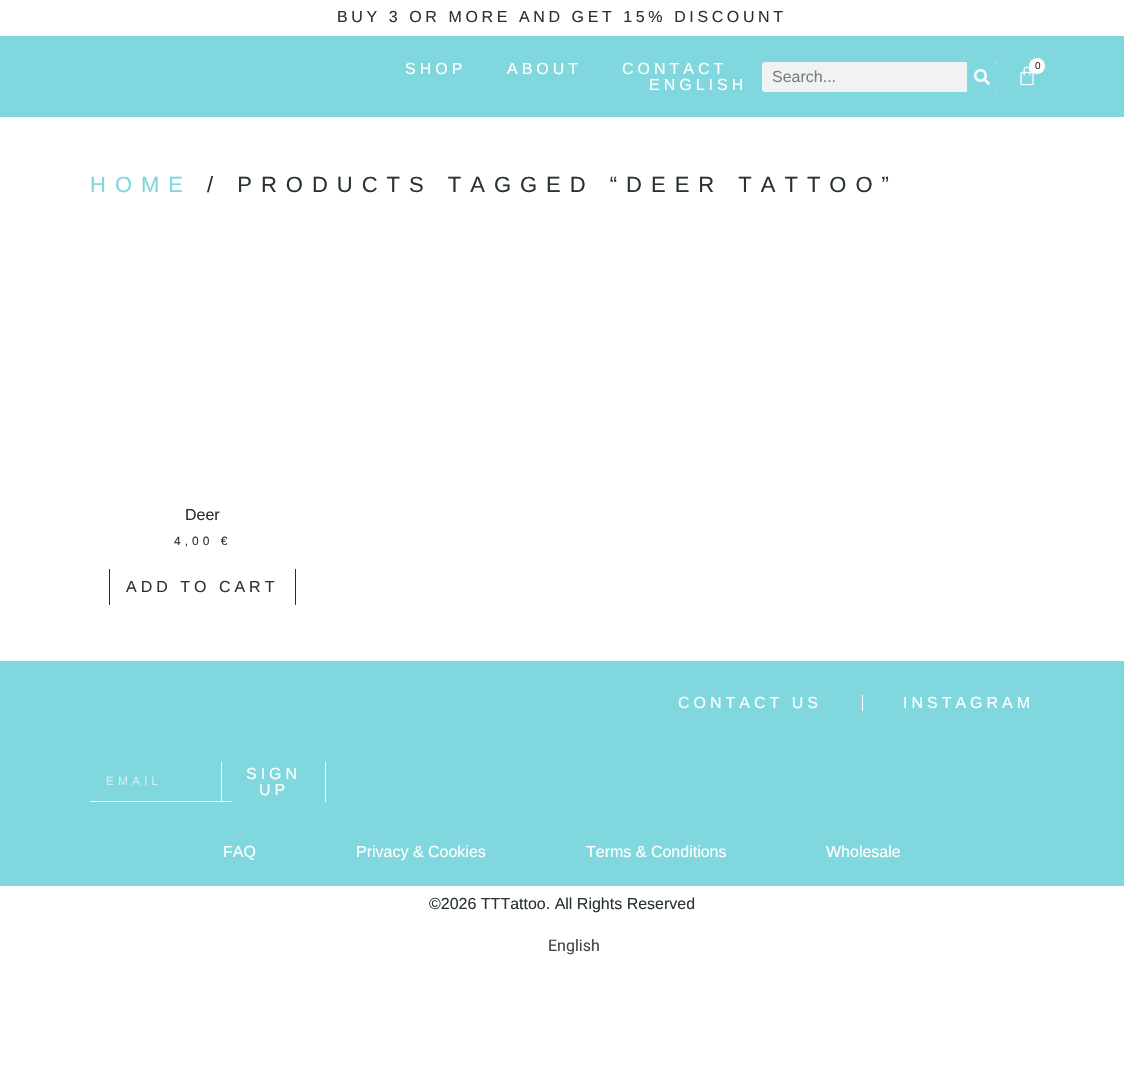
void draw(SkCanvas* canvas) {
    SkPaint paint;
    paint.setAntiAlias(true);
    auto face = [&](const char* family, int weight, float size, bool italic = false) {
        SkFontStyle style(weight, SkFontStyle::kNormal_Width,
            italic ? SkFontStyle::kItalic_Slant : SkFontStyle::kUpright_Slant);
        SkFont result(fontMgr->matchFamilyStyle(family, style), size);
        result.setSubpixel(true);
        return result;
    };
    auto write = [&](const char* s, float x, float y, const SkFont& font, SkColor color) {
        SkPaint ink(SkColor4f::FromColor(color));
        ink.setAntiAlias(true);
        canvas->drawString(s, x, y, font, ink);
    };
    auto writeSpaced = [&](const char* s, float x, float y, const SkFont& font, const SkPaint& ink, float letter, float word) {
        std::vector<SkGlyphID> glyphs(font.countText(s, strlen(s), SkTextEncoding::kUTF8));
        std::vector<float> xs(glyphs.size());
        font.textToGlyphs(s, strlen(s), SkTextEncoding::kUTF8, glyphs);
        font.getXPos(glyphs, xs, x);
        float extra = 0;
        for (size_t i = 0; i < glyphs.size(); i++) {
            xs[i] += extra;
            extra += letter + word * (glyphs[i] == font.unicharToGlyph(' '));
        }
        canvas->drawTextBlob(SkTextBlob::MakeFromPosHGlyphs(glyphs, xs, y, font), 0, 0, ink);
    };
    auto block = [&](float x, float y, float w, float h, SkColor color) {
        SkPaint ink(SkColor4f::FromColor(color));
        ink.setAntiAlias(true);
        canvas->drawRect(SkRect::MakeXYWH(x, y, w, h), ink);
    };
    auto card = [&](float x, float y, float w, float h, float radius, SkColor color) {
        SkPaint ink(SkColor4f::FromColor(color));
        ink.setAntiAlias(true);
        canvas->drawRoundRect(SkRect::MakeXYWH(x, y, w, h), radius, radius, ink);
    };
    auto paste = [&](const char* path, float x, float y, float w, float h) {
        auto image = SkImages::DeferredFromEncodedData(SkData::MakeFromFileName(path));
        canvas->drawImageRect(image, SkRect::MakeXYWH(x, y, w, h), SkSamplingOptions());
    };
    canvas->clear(SK_ColorWHITE);
    auto kFont1 = face("Liberation Sans", 400, 16);
    paint.setColor(SkColorSetRGB(41, 51, 47));
    writeSpaced("BUY 3 OR MORE AND GET 15% DISCOUNT", 337, 22, kFont1, paint, 3.6f, 0);
    block(0, 36, 1124, 81, SkColorSetRGB(128, 215, 221));
    paint.setColor(SK_ColorWHITE);
    writeSpaced("SHOP", 405, 74, kFont1, paint, 4, 0);
    writeSpaced("ABOUT", 507, 74, kFont1, paint, 4, 0);
    writeSpaced("CONTACT", 622, 74, kFont1, paint, 4, 0);
    writeSpaced("ENGLISH", 649, 90, kFont1, paint, 4, 0);
    paste("pic1.png", 1020, 66, 14, 20);
    canvas->drawCircle(1037, 66, 8, paint);
    auto kFont2 = face("Liberation Sans", 400, 10);
    write("0", 1035, 69, kFont2, SkColorSetRGB(41, 51, 47));
    card(762, 62, 235, 30, 3, SkColorSetRGB(241, 242, 243));
    write("Search...", 772, 82, kFont1, SkColorSetRGB(121, 127, 125));
    paint.setColor(SkColorSetRGB(128, 215, 221));
    canvas->drawPath(SkPathBuilder().moveTo(967, 62).lineTo(994, 62).cubicTo(995.5f, 62, 997, 63.5f, 997, 65).lineTo(997, 89).cubicTo(997, 90.5f, 995.5f, 92, 994, 92).lineTo(967, 92).close().detach(), paint);
    paste("pic2.png", 974, 69, 16, 16);
    auto kFont3 = face("Liberation Sans", 400, 22);
    writeSpaced("HOME", 90, 192, kFont3, paint, 9, 0);
    paint.setColor(SkColorSetRGB(41, 51, 47));
    writeSpaced("/ PRODUCTS TAGGED “DEER TATTOO”", 207, 192, kFont3, paint, 9, 0);
    write("Deer", 185, 520, kFont1, SkColorSetRGB(41, 51, 47));
    auto kFont4 = face("Liberation Sans", 400, 12);
    writeSpaced("4,00 €", 174, 545, kFont4, paint, 4, 0);
    block(295, 569, 1, 36, SkColorSetRGB(41, 51, 47));
    block(109, 569, 1, 36, SkColorSetRGB(41, 51, 47));
    writeSpaced("ADD TO CART", 126, 592, kFont1, paint, 4, 0);
    block(0, 661, 1124, 225, SkColorSetRGB(128, 215, 221));
    paint.setColor(SK_ColorWHITE);
    writeSpaced("CONTACT US", 678, 708, kFont1, paint, 4, 0);
    block(862, 695, 1, 16, SK_ColorWHITE);
    writeSpaced("INSTAGRAM", 903, 708, kFont1, paint, 4, 0);
    block(90, 801, 142, 1, SK_ColorWHITE);
    paint.setColor(SkColorSetRGB(204, 239, 241));
    writeSpaced("EMAIL", 106, 785, kFont4, paint, 4, 0);
    block(325, 762, 1, 40, SK_ColorWHITE);
    block(221, 762, 1, 40, SK_ColorWHITE);
    paint.setColor(SK_ColorWHITE);
    writeSpaced("SIGN", 246, 779, kFont1, paint, 4, 0);
    writeSpaced("UP", 259, 795, kFont1, paint, 4, 0);
    write("FAQ", 223, 857, kFont1, SK_ColorWHITE);
    write("Privacy & Cookies", 356, 857, kFont1, SK_ColorWHITE);
    write("Terms & Conditions", 586, 857, kFont1, SK_ColorWHITE);
    write("Wholesale", 826, 857, kFont1, SK_ColorWHITE);
    write("©2026 TTTattoo. All Rights Reserved", 429, 909, kFont1, SkColorSetRGB(41, 51, 47));
    auto kFont5 = face("Roboto", 400, 16);
    write("English", 548, 951, kFont5, SkColorSetRGB(68, 68, 68));
}
